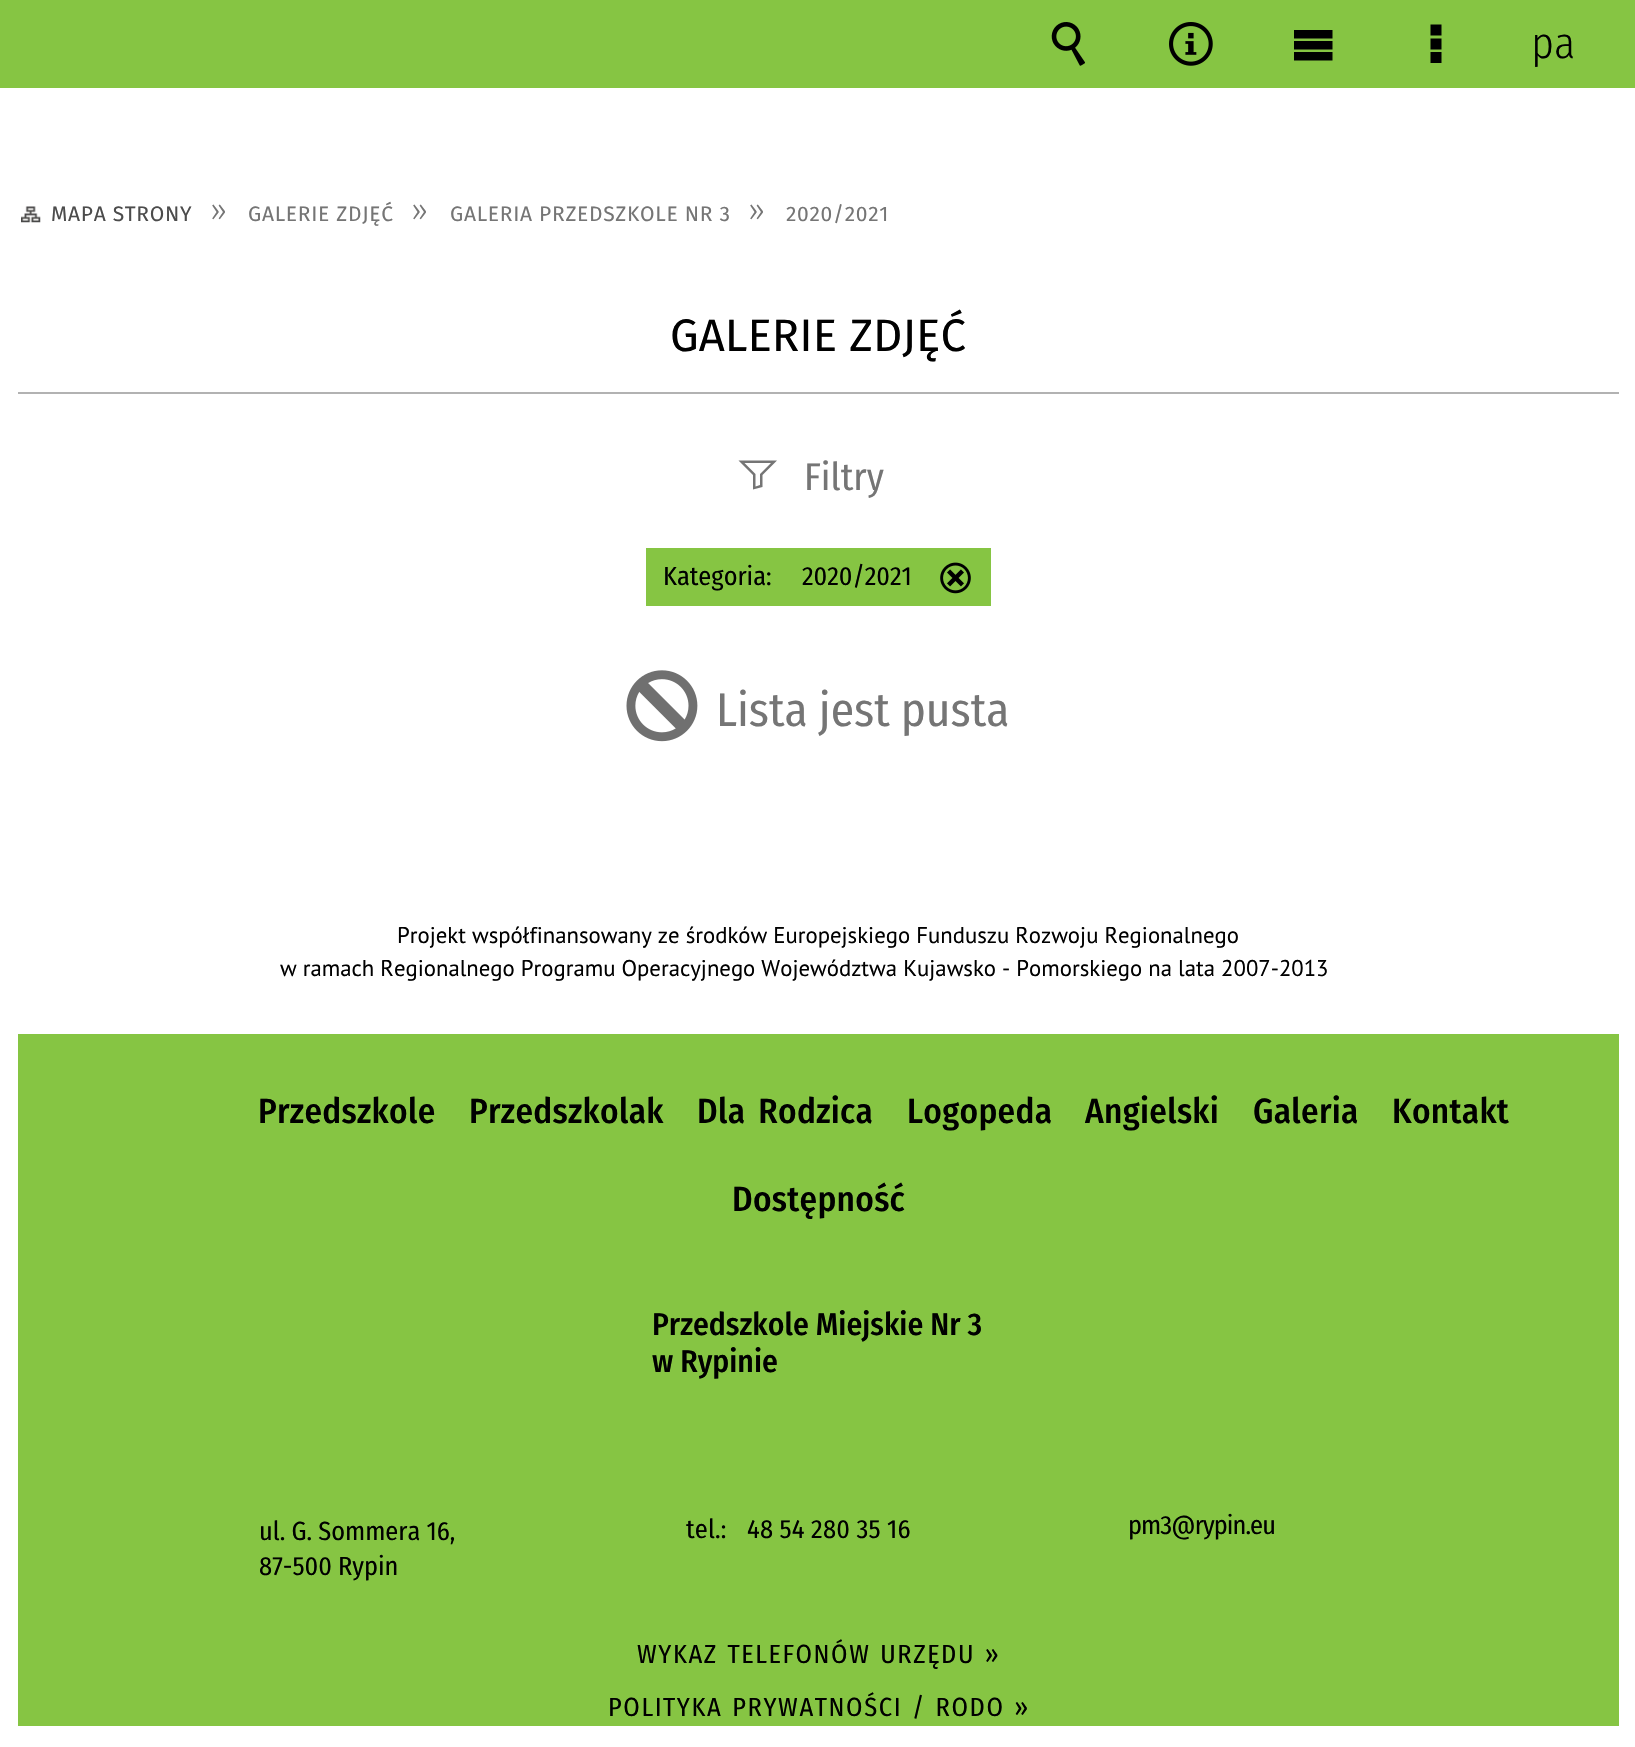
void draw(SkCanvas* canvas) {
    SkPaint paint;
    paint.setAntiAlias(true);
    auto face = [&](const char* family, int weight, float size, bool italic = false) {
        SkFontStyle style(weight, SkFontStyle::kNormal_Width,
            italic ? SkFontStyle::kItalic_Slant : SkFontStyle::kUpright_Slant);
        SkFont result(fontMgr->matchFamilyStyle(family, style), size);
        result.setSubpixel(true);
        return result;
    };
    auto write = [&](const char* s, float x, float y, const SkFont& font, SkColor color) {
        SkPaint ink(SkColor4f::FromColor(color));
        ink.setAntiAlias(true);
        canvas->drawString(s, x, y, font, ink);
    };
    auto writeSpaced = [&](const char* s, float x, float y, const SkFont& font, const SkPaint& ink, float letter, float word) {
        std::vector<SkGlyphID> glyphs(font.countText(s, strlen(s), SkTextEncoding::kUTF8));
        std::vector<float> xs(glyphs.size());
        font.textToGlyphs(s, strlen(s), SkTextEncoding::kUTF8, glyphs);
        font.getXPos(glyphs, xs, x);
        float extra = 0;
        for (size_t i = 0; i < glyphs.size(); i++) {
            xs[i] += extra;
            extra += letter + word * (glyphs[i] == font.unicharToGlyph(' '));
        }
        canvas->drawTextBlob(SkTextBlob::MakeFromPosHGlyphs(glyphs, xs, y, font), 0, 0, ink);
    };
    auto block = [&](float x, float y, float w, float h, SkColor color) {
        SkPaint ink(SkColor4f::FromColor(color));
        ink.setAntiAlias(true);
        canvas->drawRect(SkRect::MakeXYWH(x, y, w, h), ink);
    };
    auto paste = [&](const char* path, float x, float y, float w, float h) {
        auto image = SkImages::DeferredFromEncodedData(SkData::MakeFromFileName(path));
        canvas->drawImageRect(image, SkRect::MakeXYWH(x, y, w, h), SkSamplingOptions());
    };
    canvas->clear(SK_ColorWHITE);
    block(0, 0, 1635, 88, SkColorSetRGB(134, 197, 67));
    paste("pic1.png", 1051, 22, 34, 44);
    paste("pic2.png", 1169, 22, 44, 44);
    paint.setColor(SK_ColorBLACK);
    canvas->drawPath(SkPathBuilder().moveTo(1294, 30).lineTo(1294, 38.5f).lineTo(1332.5f, 38.5f).lineTo(1332.5f, 30).close().moveTo(1294, 41).lineTo(1294, 49.5f).lineTo(1332.5f, 49.5f).lineTo(1332.5f, 41).close().moveTo(1294, 52).lineTo(1294, 60.5f).lineTo(1332.5f, 60.5f).lineTo(1332.5f, 52).close().detach(), paint);
    canvas->drawPath(SkPathBuilder().moveTo(1430.5f, 24.5f).lineTo(1430.5f, 35.5f).lineTo(1441.5f, 35.5f).lineTo(1441.5f, 24.5f).close().moveTo(1430.5f, 38.5f).lineTo(1430.5f, 49.5f).lineTo(1441.5f, 49.5f).lineTo(1441.5f, 38.5f).close().moveTo(1430.5f, 52).lineTo(1430.5f, 63).lineTo(1441.5f, 63).lineTo(1441.5f, 52).close().detach(), paint);
    auto kFont1 = face("Fira Sans Condensed", 300, 44);
    write("pa", 1531, 58, kFont1, SK_ColorBLACK);
    paste("pic3.png", 21, 206, 20, 17);
    auto kFont2 = face("Fira Sans", 400, 21);
    paint.setColor(SkColorSetRGB(76, 76, 76));
    writeSpaced("MAPA STRONY", 51, 221, kFont2, paint, 0.7f, 0);
    auto kFont3 = face("Fira Sans", 300, 31.5f);
    paint.setColor(SkColorSetRGB(117, 117, 117));
    writeSpaced("»", 210, 221, kFont3, paint, 0.7f, 0);
    writeSpaced("GALERIE ZDJĘĆ", 248, 221, kFont2, paint, 0.7f, 0);
    writeSpaced("»", 411, 221, kFont3, paint, 0.7f, 0);
    writeSpaced("GALERIA PRZEDSZKOLE NR 3", 450, 221, kFont2, paint, 0.7f, 0);
    writeSpaced("»", 748, 221, kFont3, paint, 0.7f, 0);
    writeSpaced("2020/2021", 786, 221, kFont2, paint, 0.7f, 0);
    block(18, 392, 1601, 2, SkColorSetRGB(178, 178, 178));
    auto kFont4 = face("Fira Sans", 400, 45.5f);
    write("GALERIE ZDJĘĆ", 670, 351, kFont4, SK_ColorBLACK);
    canvas->drawPath(SkPathBuilder().moveTo(771, 463).lineTo(744.5f, 463).lineTo(755.5f, 474).lineTo(755.5f, 486.5f).lineTo(760, 485).lineTo(760, 474).close().moveTo(777, 460.5f).lineTo(762.5f, 475).lineTo(762.5f, 487).lineTo(753, 489.5f).lineTo(753, 475).lineTo(738.5f, 460.5f).close().detach(), paint);
    auto kFont5 = face("Fira Sans Condensed", 400, 38.5f);
    write("Filtry", 804, 490, kFont5, SkColorSetRGB(117, 117, 117));
    block(646, 548, 345, 58, SkColorSetRGB(134, 197, 67));
    auto kFont6 = face("Fira Sans Condensed", 400, 26.25f);
    write("Kategoria:", 663, 585, kFont6, SK_ColorBLACK);
    write("2020/2021", 802, 585, kFont6, SK_ColorBLACK);
    paste("pic4.png", 940, 562, 31, 32);
    paste("pic5.png", 626, 670, 72, 72);
    auto kFont7 = face("Fira Sans Condensed", 400, 47.25f);
    write("Lista jest pusta", 716, 726, kFont7, SkColorSetRGB(117, 117, 117));
    auto kFont8 = face("PT Sans", 400, 22.75f);
    write("Projekt współfinansowany ze środków Europejskiego Funduszu Rozwoju Regionalnego", 397, 943, kFont8, SK_ColorBLACK);
    write("w ramach Regionalnego Programu Operacyjnego Województwa Kujawsko - Pomorskiego na lata 2007-2013", 280, 976, kFont8, SK_ColorBLACK);
    block(18, 1034, 1601, 692, SkColorSetRGB(134, 197, 67));
    auto kFont9 = face("Fira Sans Condensed", 500, 35);
    paint.setColor(SK_ColorBLACK);
    writeSpaced("Przedszkole", 258, 1123, kFont9, paint, 0.3f, 0);
    writeSpaced("Przedszkolak", 469, 1123, kFont9, paint, 0.3f, 0);
    writeSpaced("Dla Rodzica", 697, 1123, kFont9, paint, 0.3f, 5);
    writeSpaced("Logopeda", 907, 1123, kFont9, paint, 0.3f, 0);
    writeSpaced("Angielski", 1085, 1123, kFont9, paint, 0.3f, 0);
    writeSpaced("Galeria", 1253, 1123, kFont9, paint, 0.3f, 0);
    writeSpaced("Kontakt", 1392, 1123, kFont9, paint, 0.3f, 0);
    writeSpaced("Dostępność", 732, 1211, kFont9, paint, 0.3f, 0);
    auto kFont10 = face("Fira Sans Condensed", 500, 31.5f);
    write("Przedszkole Miejskie Nr 3", 652, 1335, kFont10, SK_ColorBLACK);
    write("w Rypinie", 652, 1372, kFont10, SK_ColorBLACK);
    write("ul. G. Sommera 16,", 259, 1540, kFont6, SK_ColorBLACK);
    write("87-500 Rypin", 259, 1575, kFont6, SK_ColorBLACK);
    writeSpaced("tel.:", 686, 1538, kFont6, paint, 0.2f, 0);
    writeSpaced("48 54 280 35 16", 747, 1538, kFont6, paint, 0.2f, 0);
    writeSpaced("pm3@rypin.eu", 1128, 1534, kFont6, paint, -0.9f, 0);
    writeSpaced("WYKAZ TELEFONÓW URZĘDU »", 637, 1663, kFont6, paint, 1.6f, 2);
    writeSpaced("POLITYKA PRYWATNOŚCI / RODO »", 608, 1716, kFont6, paint, 1.6f, 2);
}
